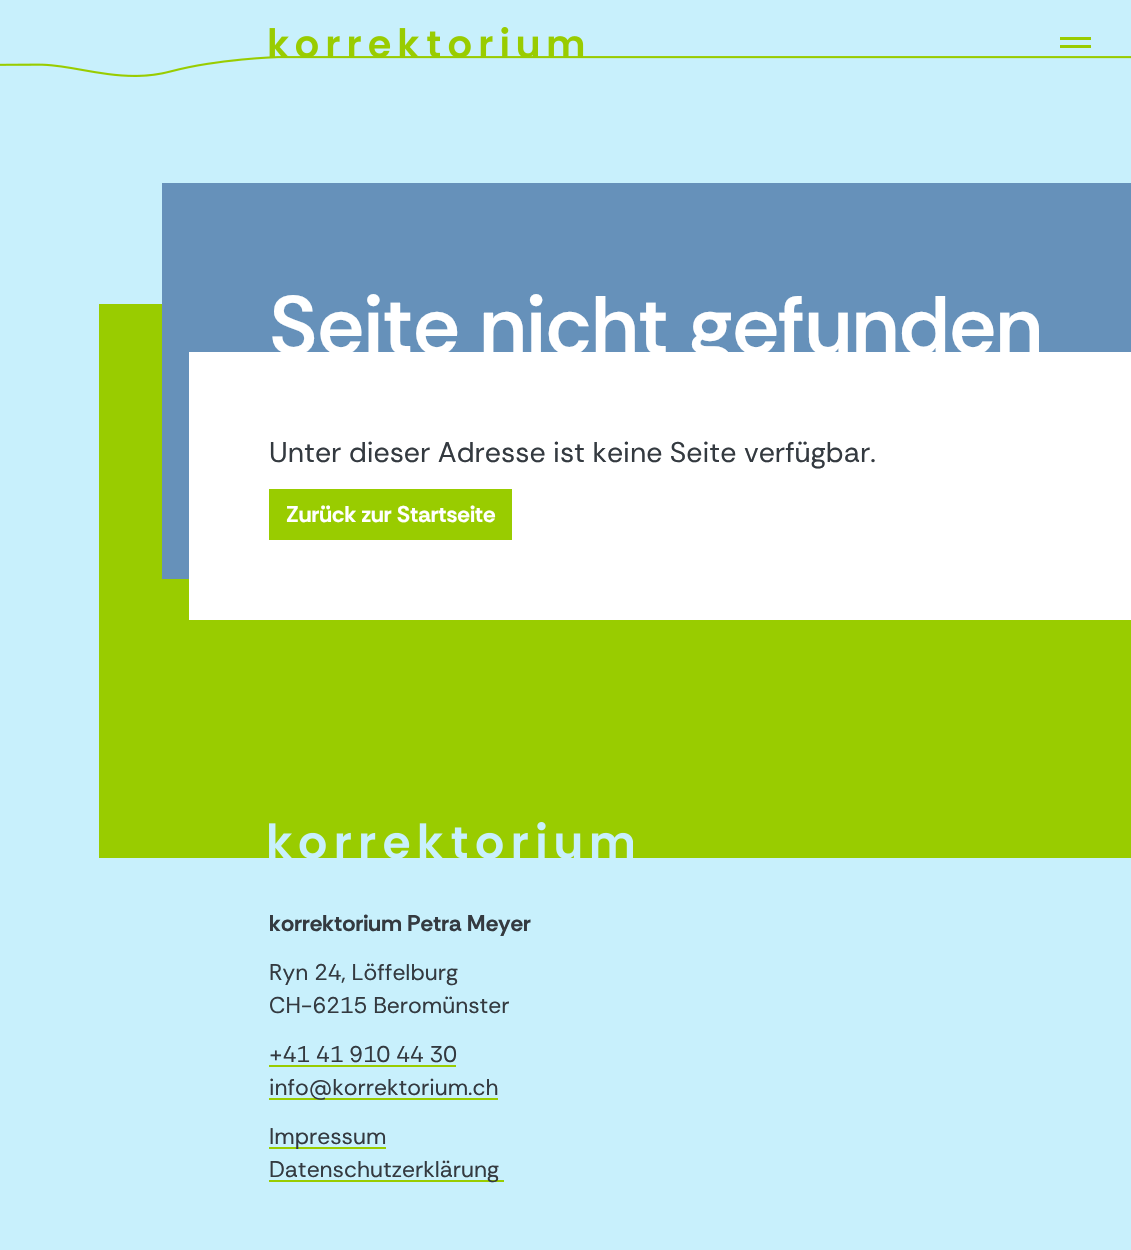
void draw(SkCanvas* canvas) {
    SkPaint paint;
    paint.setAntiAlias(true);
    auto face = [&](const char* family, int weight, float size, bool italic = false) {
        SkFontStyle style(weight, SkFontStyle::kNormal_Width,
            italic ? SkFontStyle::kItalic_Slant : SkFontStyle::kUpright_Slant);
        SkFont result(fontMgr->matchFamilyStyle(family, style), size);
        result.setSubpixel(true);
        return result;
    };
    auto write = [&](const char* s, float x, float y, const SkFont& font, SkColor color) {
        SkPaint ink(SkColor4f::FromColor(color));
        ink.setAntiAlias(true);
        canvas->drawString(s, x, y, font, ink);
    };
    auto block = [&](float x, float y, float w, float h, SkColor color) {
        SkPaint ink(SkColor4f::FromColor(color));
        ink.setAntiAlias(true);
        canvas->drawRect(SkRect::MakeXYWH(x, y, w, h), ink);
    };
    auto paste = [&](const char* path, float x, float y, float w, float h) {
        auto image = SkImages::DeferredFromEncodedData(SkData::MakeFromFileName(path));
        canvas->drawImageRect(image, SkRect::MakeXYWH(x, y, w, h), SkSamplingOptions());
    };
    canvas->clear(SkColorSetRGB(200, 240, 252));
    paste("pic1.png", 0, 27, 1131, 50);
    block(1060, 37, 31, 3, SkColorSetRGB(153, 204, 0));
    block(1060, 45, 31, 3, SkColorSetRGB(153, 204, 0));
    block(99, 304, 1032, 554, SkColorSetRGB(153, 204, 0));
    block(162, 183, 969, 396, SkColorSetRGB(102, 145, 186));
    auto kFont1 = face("Rethink Sans", 600, 83);
    write("Seite nicht gefunden", 269, 354, kFont1, SK_ColorWHITE);
    block(189, 352, 942, 268, SK_ColorWHITE);
    auto kFont2 = face("Rethink Sans", 400, 28.4f);
    write("Unter dieser Adresse ist keine Seite verfügbar.", 269, 462, kFont2, SkColorSetRGB(52, 58, 64));
    block(269, 489, 243, 51, SkColorSetRGB(153, 204, 0));
    auto kFont3 = face("Rethink Sans", 700, 22.75f);
    write("Zurück zur Startseite", 286, 522, kFont3, SK_ColorWHITE);
    paste("pic2.png", 269, 822, 364, 36);
    write("korrektorium Petra Meyer", 269, 931, kFont3, SkColorSetRGB(52, 58, 64));
    auto kFont4 = face("Rethink Sans", 400, 22.75f);
    write("Ryn 24, Löffelburg", 269, 980, kFont4, SkColorSetRGB(52, 58, 64));
    write("CH-6215 Beromünster", 269, 1013, kFont4, SkColorSetRGB(52, 58, 64));
    write("+41 41 910 44 30", 269, 1062, kFont4, SkColorSetRGB(52, 58, 64));
    block(269, 1065, 187, 2, SkColorSetRGB(153, 204, 0));
    block(269, 1098, 229, 2, SkColorSetRGB(153, 204, 0));
    write("info@korrektorium.ch", 269, 1095, kFont4, SkColorSetRGB(52, 58, 64));
    block(269, 1147, 117, 2, SkColorSetRGB(153, 204, 0));
    write("Impressum", 269, 1144, kFont4, SkColorSetRGB(52, 58, 64));
    block(269, 1180, 235, 2, SkColorSetRGB(153, 204, 0));
    write("Datenschutzerklärung", 269, 1177, kFont4, SkColorSetRGB(52, 58, 64));
}
